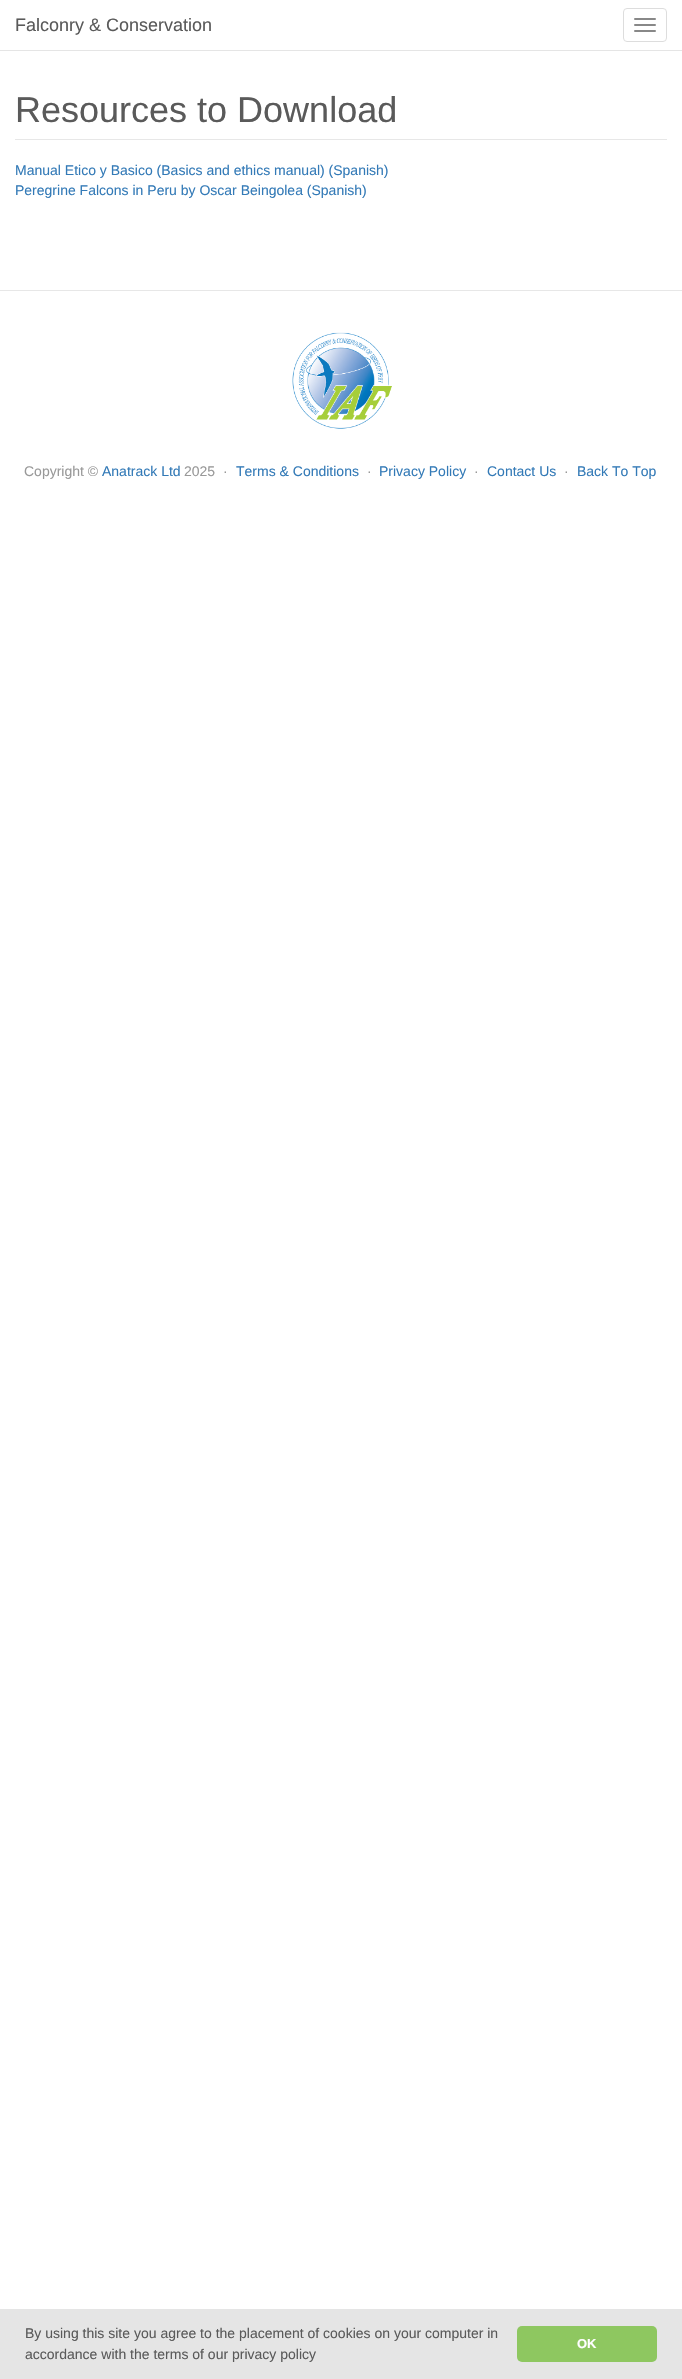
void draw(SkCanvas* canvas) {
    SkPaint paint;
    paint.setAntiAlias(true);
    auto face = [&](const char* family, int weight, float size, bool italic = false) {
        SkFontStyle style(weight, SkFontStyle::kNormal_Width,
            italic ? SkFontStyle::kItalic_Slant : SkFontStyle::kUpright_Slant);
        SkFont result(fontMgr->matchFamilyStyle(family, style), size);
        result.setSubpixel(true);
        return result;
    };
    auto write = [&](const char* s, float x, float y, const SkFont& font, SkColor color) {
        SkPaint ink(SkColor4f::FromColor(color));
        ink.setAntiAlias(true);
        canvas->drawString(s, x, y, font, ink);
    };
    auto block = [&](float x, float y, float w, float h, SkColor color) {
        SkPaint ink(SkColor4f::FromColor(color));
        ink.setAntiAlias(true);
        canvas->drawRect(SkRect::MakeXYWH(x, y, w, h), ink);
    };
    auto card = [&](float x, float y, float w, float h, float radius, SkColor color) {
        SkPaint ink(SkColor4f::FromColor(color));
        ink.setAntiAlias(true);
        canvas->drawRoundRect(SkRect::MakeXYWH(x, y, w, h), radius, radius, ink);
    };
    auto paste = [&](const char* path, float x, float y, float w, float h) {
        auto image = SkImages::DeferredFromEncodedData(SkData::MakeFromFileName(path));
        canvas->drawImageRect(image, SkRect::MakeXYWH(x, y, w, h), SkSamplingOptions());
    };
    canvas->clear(SK_ColorWHITE);
    block(0, 50, 682, 1, SkColorSetRGB(229, 229, 229));
    auto kFont1 = face("Liberation Sans", 400, 18);
    write("Falconry & Conservation", 15, 31, kFont1, SkColorSetRGB(90, 90, 90));
    paint.setStyle(SkPaint::kStroke_Style);
    paint.setStrokeWidth(1);
    paint.setColor(SkColorSetRGB(221, 221, 221));
    canvas->drawRoundRect(SkRect::MakeXYWH(623.5f, 8.5f, 43, 33), 3.5f, 3.5f, paint);
    card(634, 18, 22, 2, 1, SkColorSetRGB(136, 136, 136));
    card(634, 24, 22, 2, 1, SkColorSetRGB(136, 136, 136));
    card(634, 30, 22, 2, 1, SkColorSetRGB(136, 136, 136));
    block(15, 139, 652, 1, SkColorSetRGB(231, 231, 231));
    auto kFont2 = face("Liberation Sans", 400, 36);
    write("Resources to Download", 15, 122, kFont2, SkColorSetRGB(90, 90, 90));
    auto kFont3 = face("Liberation Sans", 400, 14);
    write("Manual Etico y Basico (Basics and ethics manual) (Spanish)", 15, 175, kFont3, SkColorSetRGB(51, 122, 183));
    write("Peregrine Falcons in Peru by Oscar Beingolea (Spanish)", 15, 195, kFont3, SkColorSetRGB(51, 122, 183));
    block(0, 290, 682, 1, SkColorSetRGB(231, 231, 231));
    paste("pic1.png", 292, 332, 100, 97);
    write("Copyright ©", 24, 476, kFont3, SkColorSetRGB(153, 153, 153));
    write("Anatrack Ltd", 102, 476, kFont3, SkColorSetRGB(51, 122, 183));
    write("2025", 184, 476, kFont3, SkColorSetRGB(153, 153, 153));
    write("·", 223, 476, kFont3, SkColorSetRGB(153, 153, 153));
    write("Terms & Conditions", 236, 476, kFont3, SkColorSetRGB(51, 122, 183));
    write("·", 367, 476, kFont3, SkColorSetRGB(153, 153, 153));
    write("Privacy Policy", 379, 476, kFont3, SkColorSetRGB(51, 122, 183));
    write("·", 474, 476, kFont3, SkColorSetRGB(153, 153, 153));
    write("Contact Us", 487, 476, kFont3, SkColorSetRGB(51, 122, 183));
    write("·", 564, 476, kFont3, SkColorSetRGB(153, 153, 153));
    write("Back To Top", 577, 476, kFont3, SkColorSetRGB(51, 122, 183));
    block(0, 2309, 682, 70, SkColorSetRGB(229, 229, 229));
    write("By using this site you agree to the placement of cookies on your computer in", 25, 2338, kFont3, SkColorSetRGB(90, 90, 90));
    write("accordance with the terms of our privacy policy", 25, 2359, kFont3, SkColorSetRGB(90, 90, 90));
    card(517, 2326, 140, 36, 5, SkColorSetRGB(142, 199, 96));
    auto kFont4 = face("Liberation Sans", 700, 13);
    write("OK", 577, 2348, kFont4, SK_ColorWHITE);
}
